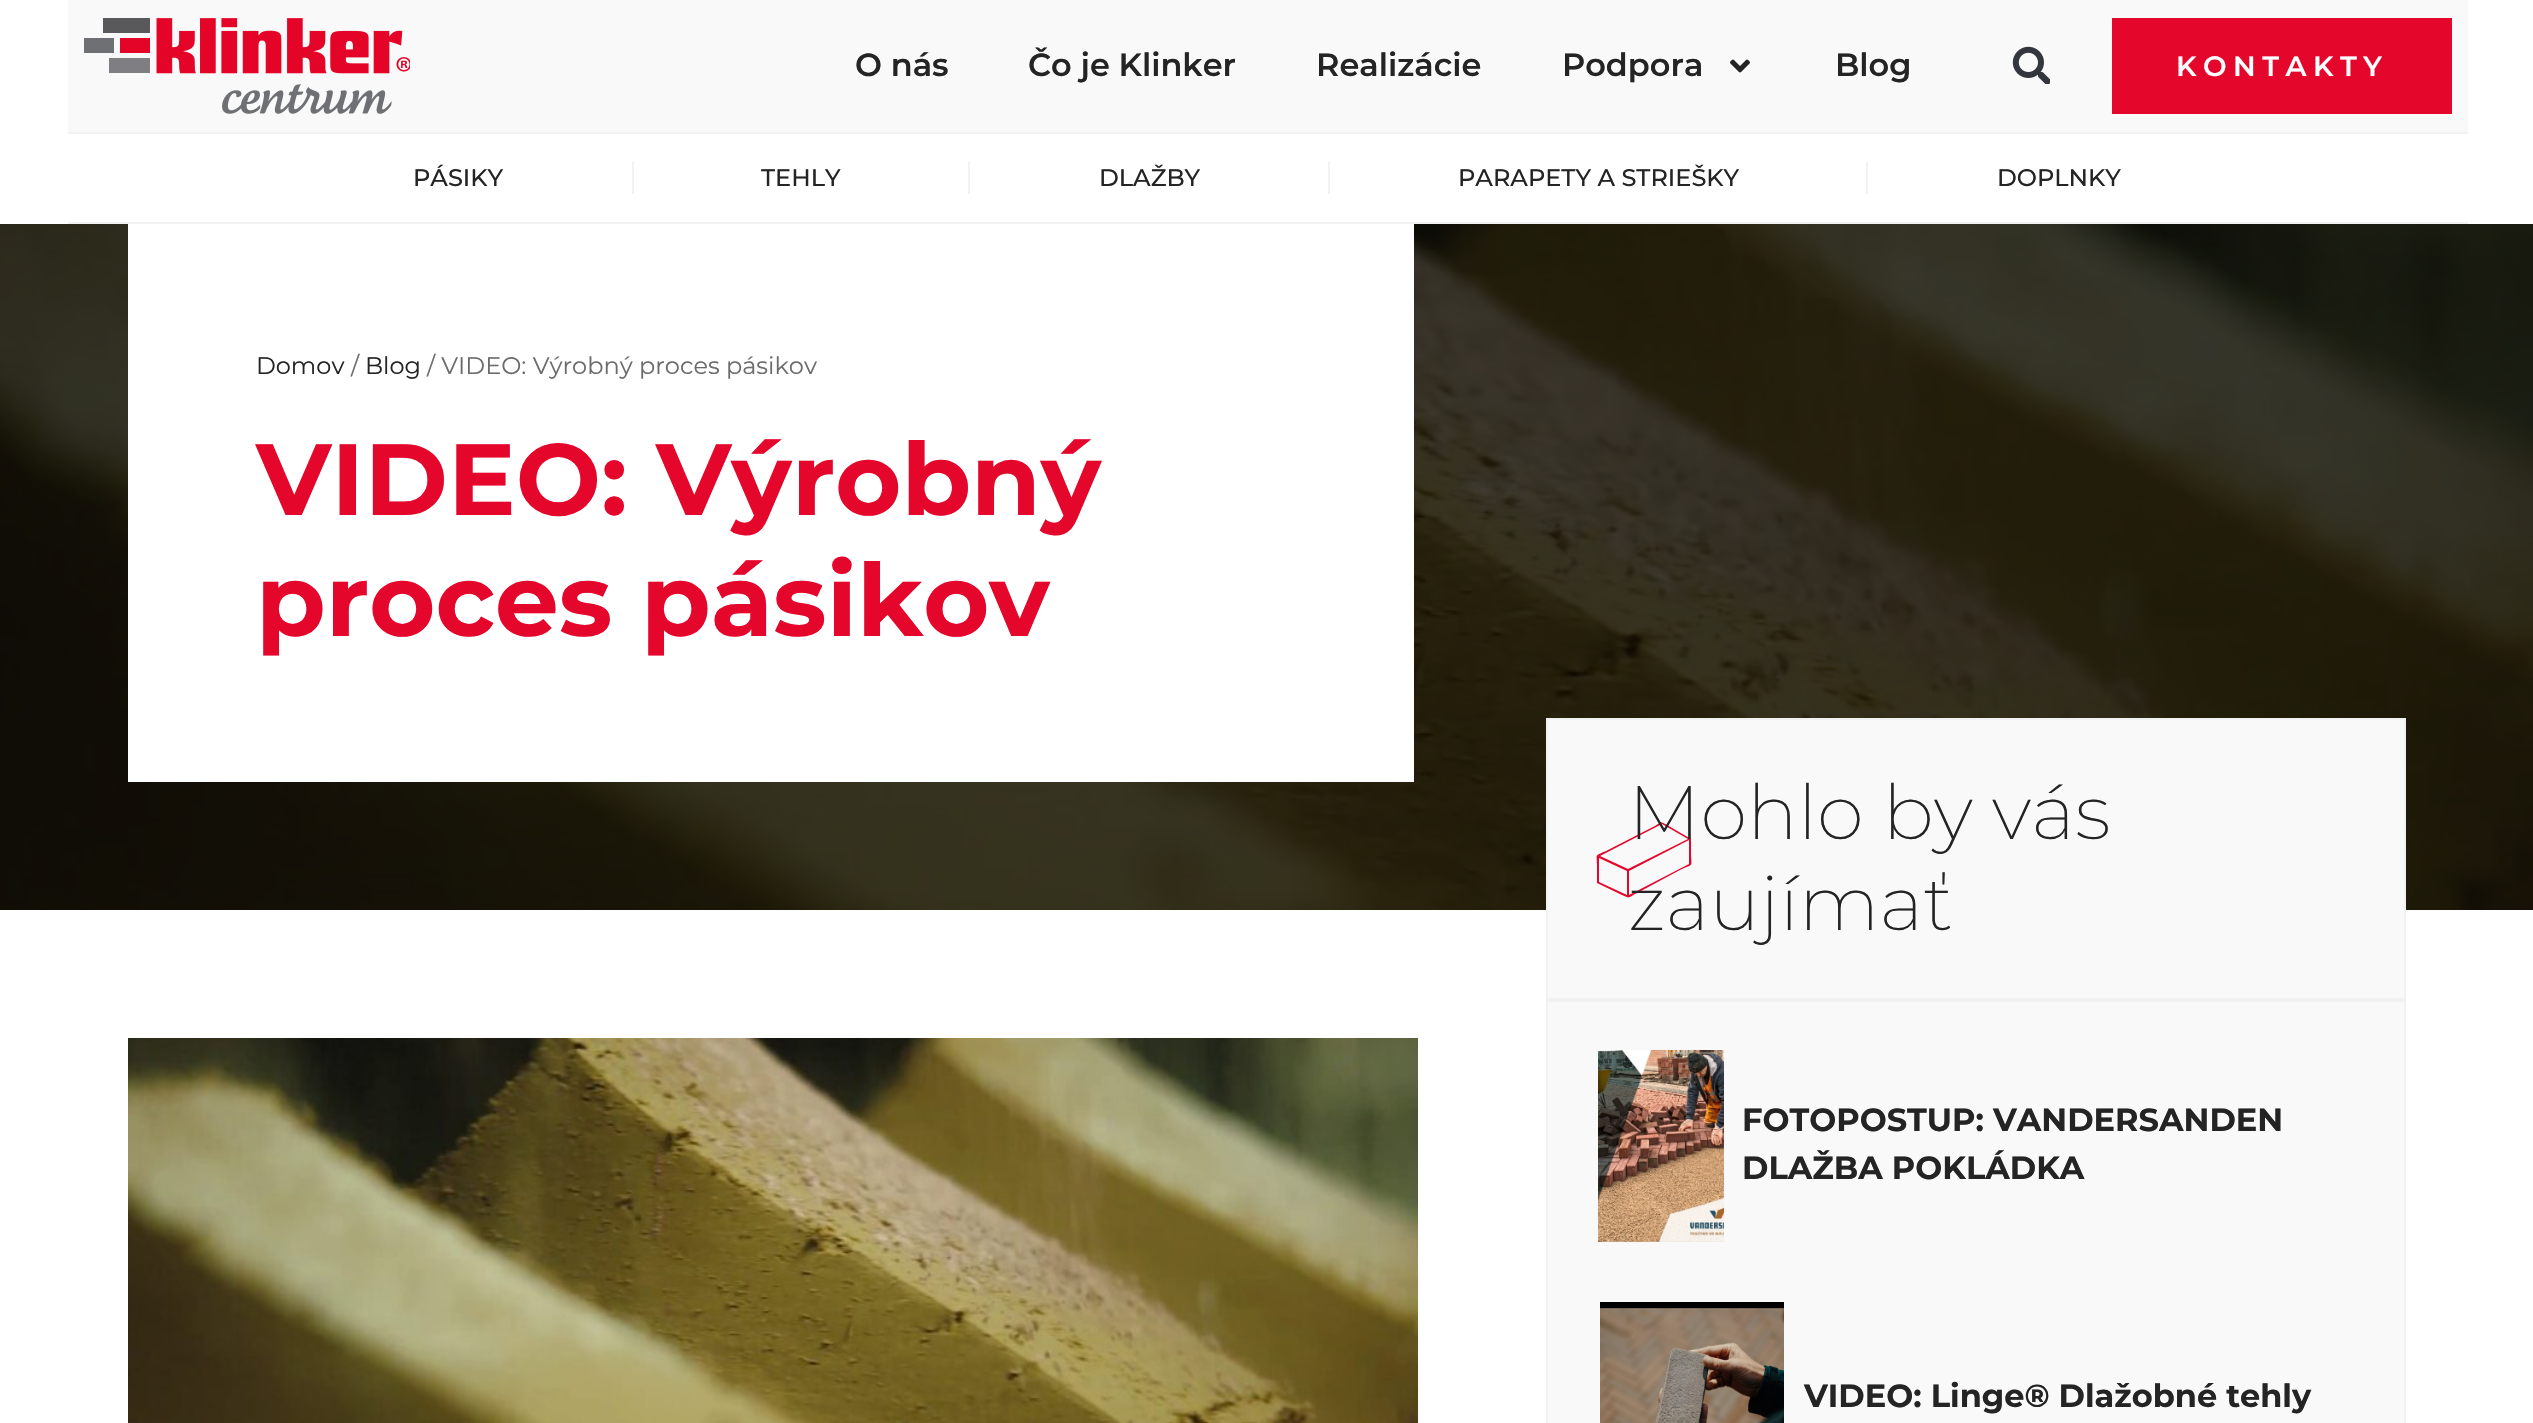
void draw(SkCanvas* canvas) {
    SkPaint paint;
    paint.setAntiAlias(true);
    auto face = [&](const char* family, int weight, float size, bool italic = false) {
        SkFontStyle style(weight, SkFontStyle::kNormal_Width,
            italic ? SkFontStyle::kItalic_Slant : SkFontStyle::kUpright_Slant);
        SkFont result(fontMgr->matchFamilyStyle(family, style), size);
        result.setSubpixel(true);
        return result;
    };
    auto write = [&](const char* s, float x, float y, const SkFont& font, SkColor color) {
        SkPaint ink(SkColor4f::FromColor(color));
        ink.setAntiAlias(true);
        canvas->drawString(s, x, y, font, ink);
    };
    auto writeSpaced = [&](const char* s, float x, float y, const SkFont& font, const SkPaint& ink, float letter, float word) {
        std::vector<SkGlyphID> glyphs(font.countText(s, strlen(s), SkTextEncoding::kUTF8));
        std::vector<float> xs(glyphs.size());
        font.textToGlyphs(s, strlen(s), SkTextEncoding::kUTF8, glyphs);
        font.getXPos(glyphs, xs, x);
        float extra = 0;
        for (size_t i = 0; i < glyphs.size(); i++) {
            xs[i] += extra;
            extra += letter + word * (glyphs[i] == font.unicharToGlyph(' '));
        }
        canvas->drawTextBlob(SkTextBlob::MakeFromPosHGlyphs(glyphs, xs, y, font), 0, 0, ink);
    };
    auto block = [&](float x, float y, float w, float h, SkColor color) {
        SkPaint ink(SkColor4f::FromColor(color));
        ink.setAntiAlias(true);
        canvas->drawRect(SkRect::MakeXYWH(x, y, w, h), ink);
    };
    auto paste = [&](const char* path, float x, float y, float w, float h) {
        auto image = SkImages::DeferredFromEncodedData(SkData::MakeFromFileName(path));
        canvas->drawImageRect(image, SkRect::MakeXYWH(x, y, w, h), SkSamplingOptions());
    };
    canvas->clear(SK_ColorWHITE);
    block(68, 0, 2400, 132, SkColorSetRGB(249, 249, 249));
    paste("pic1.png", 84, 18, 326, 96);
    auto kFont1 = face("Montserrat", 600, 32);
    write("O nás", 855, 76, kFont1, SkColorSetRGB(36, 36, 36));
    write("Čo je Klinker", 1028, 76, kFont1, SkColorSetRGB(36, 36, 36));
    write("Realizácie", 1316, 76, kFont1, SkColorSetRGB(36, 36, 36));
    write("Podpora", 1562, 76, kFont1, SkColorSetRGB(36, 36, 36));
    paste("pic2.png", 1730, 59, 20, 14);
    write("Blog", 1835, 76, kFont1, SkColorSetRGB(36, 36, 36));
    paste("pic3.png", 2012, 46, 38, 38);
    block(2112, 18, 340, 96, SkColorSetRGB(229, 6, 44));
    auto kFont2 = face("Montserrat", 600, 28);
    paint.setColor(SK_ColorWHITE);
    writeSpaced("KONTAKTY", 2176, 76, kFont2, paint, 6.5f, 0);
    block(68, 132, 2400, 2, SkColorSetRGB(242, 242, 242));
    block(68, 222, 2400, 2, SkColorSetRGB(242, 242, 242));
    auto kFont3 = face("Montserrat", 500, 24);
    write("PÁSIKY", 413, 186, kFont3, SkColorSetRGB(36, 36, 36));
    block(632, 162, 2, 32, SkColorSetRGB(242, 242, 242));
    write("TEHLY", 761, 186, kFont3, SkColorSetRGB(36, 36, 36));
    block(968, 162, 2, 32, SkColorSetRGB(242, 242, 242));
    write("DLAŽBY", 1099, 186, kFont3, SkColorSetRGB(36, 36, 36));
    block(1328, 162, 2, 32, SkColorSetRGB(242, 242, 242));
    write("PARAPETY A STRIEŠKY", 1458, 186, kFont3, SkColorSetRGB(36, 36, 36));
    block(1866, 162, 2, 32, SkColorSetRGB(242, 242, 242));
    write("DOPLNKY", 1997, 186, kFont3, SkColorSetRGB(36, 36, 36));
    paste("pic4.png", 0, 224, 2533, 686);
    block(128, 224, 1286, 558, SK_ColorWHITE);
    auto kFont4 = face("Montserrat", 400, 24);
    write("Domov", 256, 374, kFont4, SkColorSetRGB(36, 36, 36));
    write("/", 351, 374, kFont4, SkColorSetRGB(107, 107, 107));
    write("Blog", 365, 374, kFont4, SkColorSetRGB(36, 36, 36));
    write("/ VIDEO: Výrobný proces pásikov", 427, 374, kFont4, SkColorSetRGB(107, 107, 107));
    auto kFont5 = face("Montserrat", 700, 101);
    write("VIDEO: Výrobný", 256, 515, kFont5, SkColorSetRGB(229, 6, 44));
    write("proces pásikov", 256, 636, kFont5, SkColorSetRGB(229, 6, 44));
    paste("pic5.png", 128, 1038, 1290, 385);
    paint.setColor(SkColorSetRGB(249, 249, 249));
    canvas->drawRect(SkRect::MakeXYWH(1547, 719, 858, 280), paint);
    paint.setStyle(SkPaint::kStroke_Style);
    paint.setStrokeWidth(2);
    paint.setColor(SkColorSetRGB(242, 242, 242));
    canvas->drawRect(SkRect::MakeXYWH(1547, 719, 858, 280), paint);
    paint.setStyle(SkPaint::kFill_Style);
    paint.setColor(SkColorSetRGB(229, 6, 44));
    canvas->drawPath(SkPathBuilder().moveTo(1691, 839).lineTo(1667, 825).cubicTo(1658, 820, 1663, 822, 1651, 828).lineTo(1608, 850).cubicTo(1594, 857, 1597, 852, 1597, 865).lineTo(1597, 883).lineTo(1622, 895).cubicTo(1631, 899, 1627, 898, 1639, 892).lineTo(1680, 870).cubicTo(1695, 863, 1691, 868, 1691, 852).close().moveTo(1627, 895).lineTo(1599, 882).lineTo(1599, 858).lineTo(1627, 871).close().moveTo(1628, 869).lineTo(1600, 856).lineTo(1662, 824).lineTo(1688, 839).close().moveTo(1689, 864).lineTo(1629, 895).lineTo(1629, 871).lineTo(1689, 840).close().detach(), paint);
    auto kFont6 = face("Montserrat", 200, 75.75f);
    write("Mohlo by vás", 1628, 839, kFont6, SkColorSetRGB(36, 36, 36));
    write("zaujímať", 1628, 930, kFont6, SkColorSetRGB(36, 36, 36));
    paint.setColor(SkColorSetRGB(249, 249, 249));
    canvas->drawRect(SkRect::MakeXYWH(1547, 1001, 858, 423), paint);
    paint.setStyle(SkPaint::kStroke_Style);
    paint.setColor(SkColorSetRGB(242, 242, 242));
    canvas->drawRect(SkRect::MakeXYWH(1547, 1001, 858, 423), paint);
    paste("pic6.png", 1598, 1050, 126, 192);
    auto kFont7 = face("Montserrat", 700, 32);
    write("FOTOPOSTUP: VANDERSANDEN", 1742, 1131, kFont7, SkColorSetRGB(36, 36, 36));
    write("DLAŽBA POKLÁDKA", 1742, 1179, kFont7, SkColorSetRGB(36, 36, 36));
    paste("pic7.png", 1600, 1302, 184, 121);
    write("VIDEO: Linge® Dlažobné tehly", 1804, 1407, kFont7, SkColorSetRGB(36, 36, 36));
}
